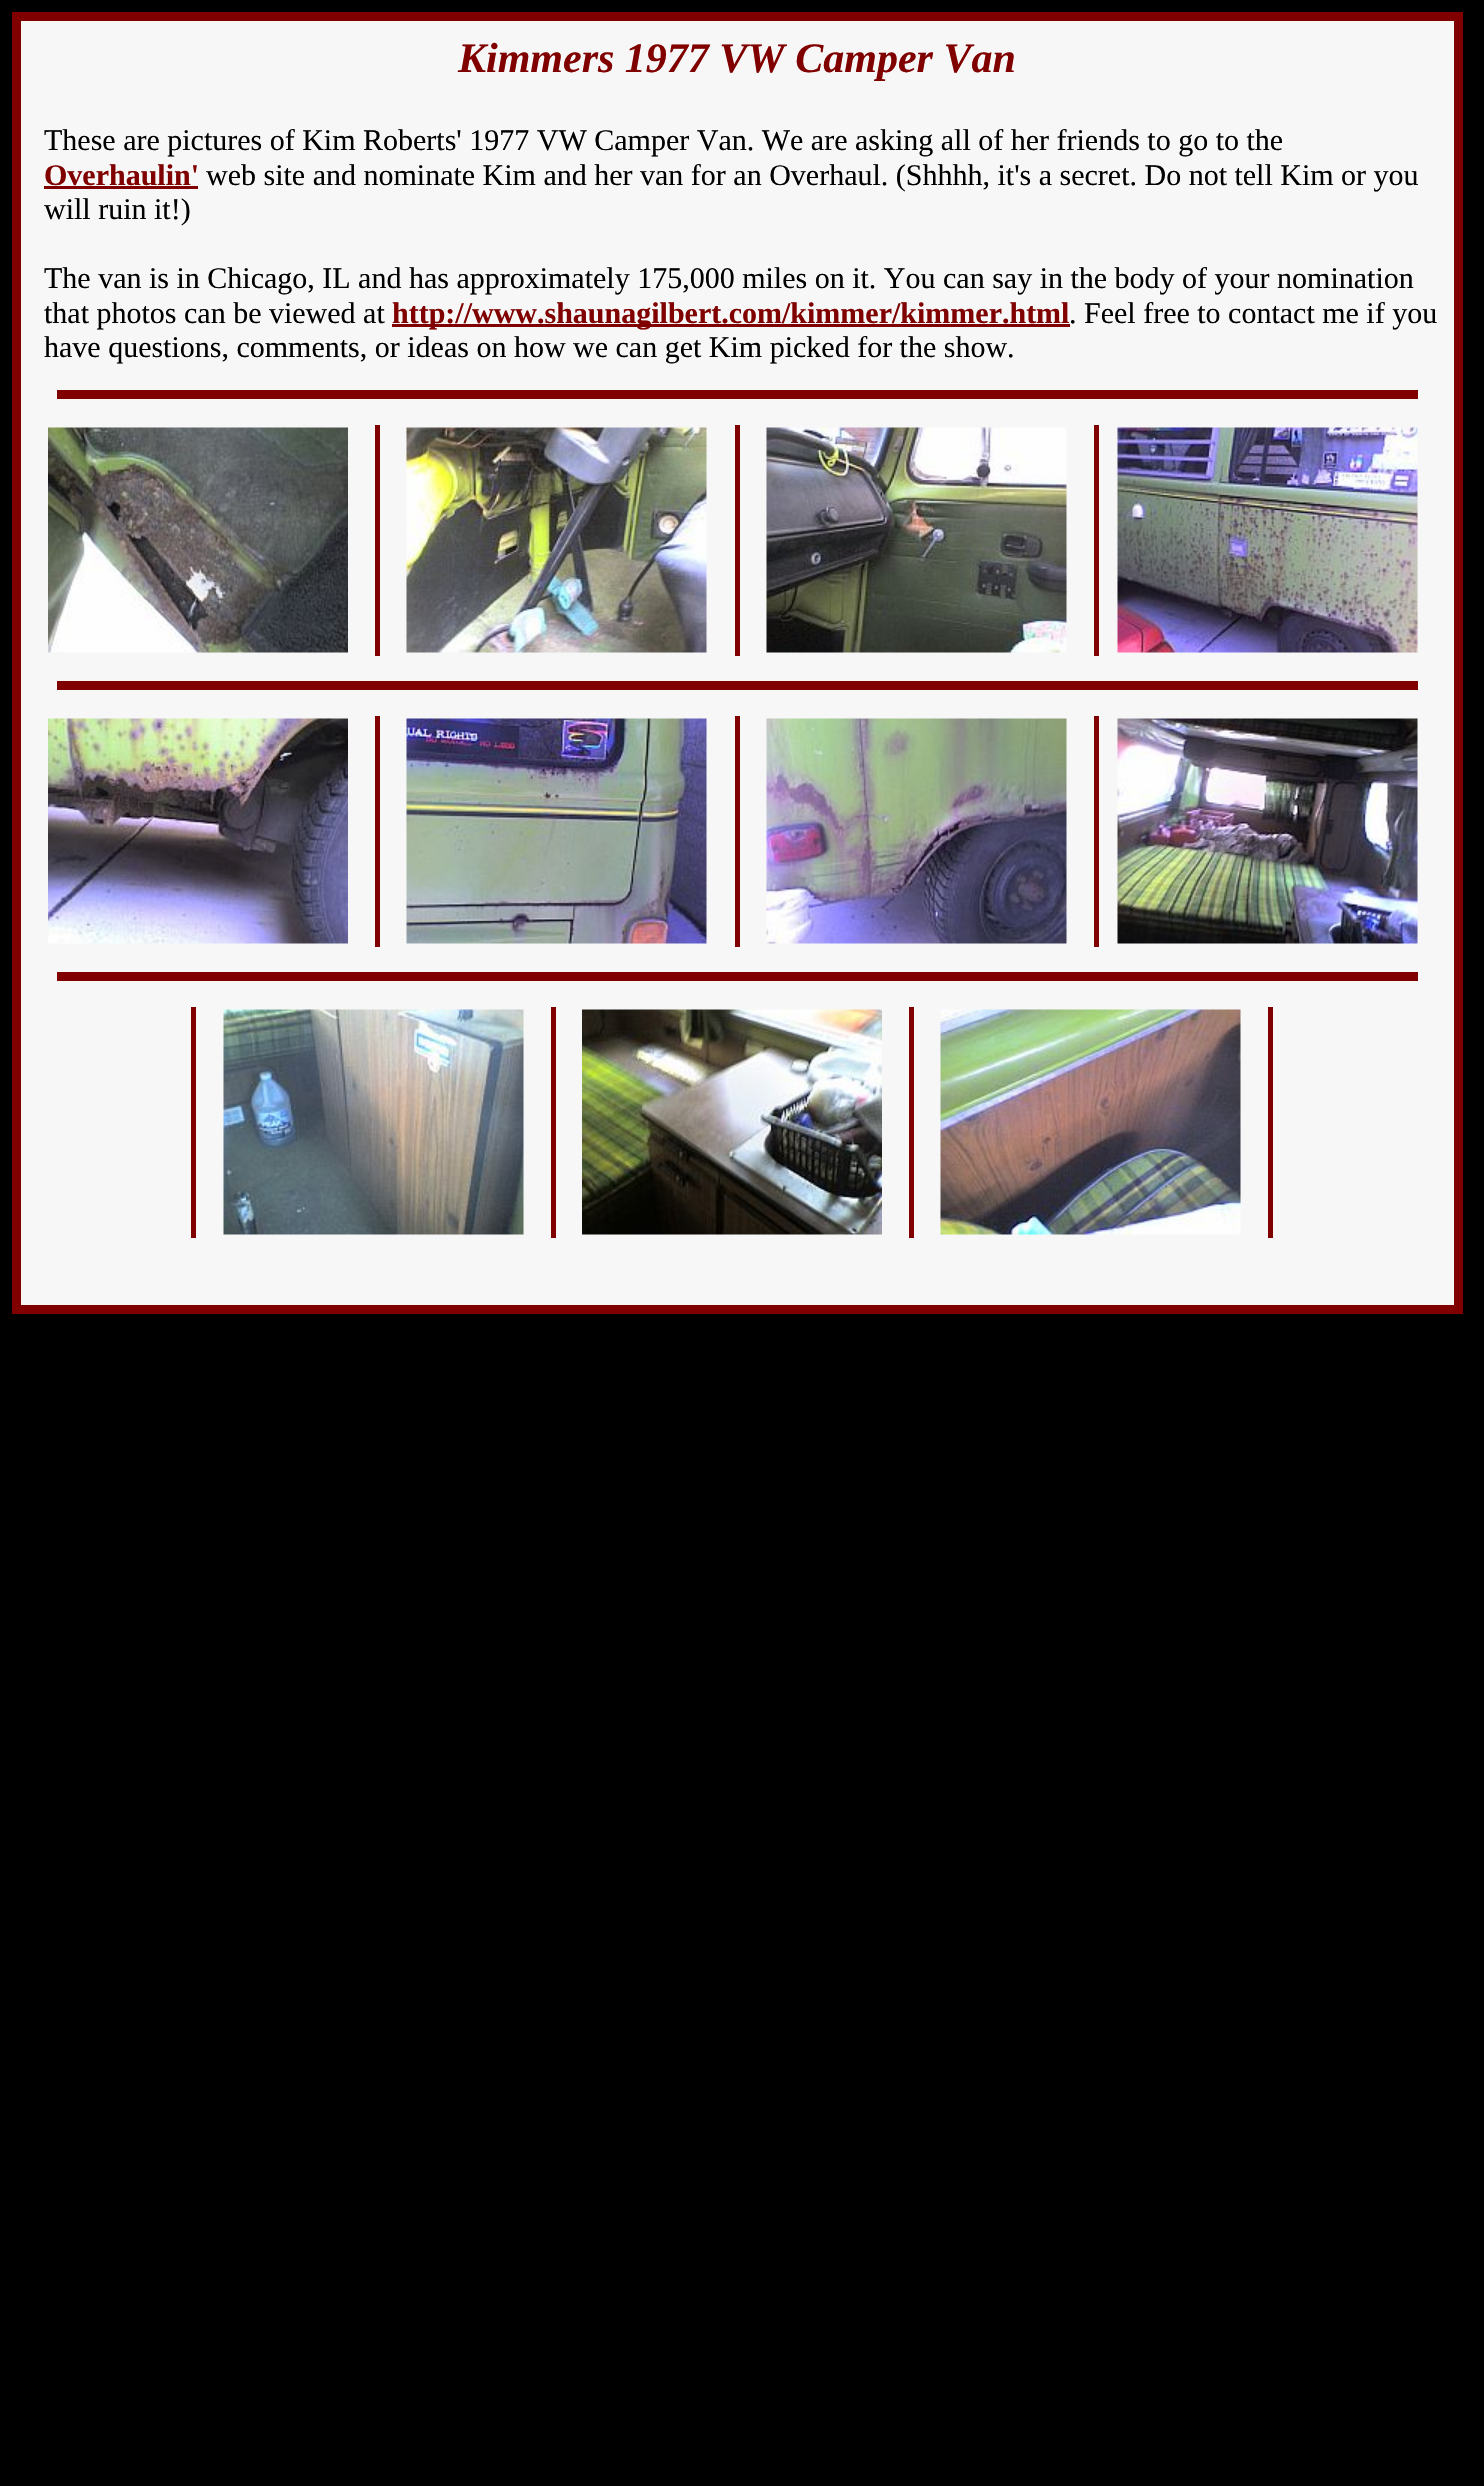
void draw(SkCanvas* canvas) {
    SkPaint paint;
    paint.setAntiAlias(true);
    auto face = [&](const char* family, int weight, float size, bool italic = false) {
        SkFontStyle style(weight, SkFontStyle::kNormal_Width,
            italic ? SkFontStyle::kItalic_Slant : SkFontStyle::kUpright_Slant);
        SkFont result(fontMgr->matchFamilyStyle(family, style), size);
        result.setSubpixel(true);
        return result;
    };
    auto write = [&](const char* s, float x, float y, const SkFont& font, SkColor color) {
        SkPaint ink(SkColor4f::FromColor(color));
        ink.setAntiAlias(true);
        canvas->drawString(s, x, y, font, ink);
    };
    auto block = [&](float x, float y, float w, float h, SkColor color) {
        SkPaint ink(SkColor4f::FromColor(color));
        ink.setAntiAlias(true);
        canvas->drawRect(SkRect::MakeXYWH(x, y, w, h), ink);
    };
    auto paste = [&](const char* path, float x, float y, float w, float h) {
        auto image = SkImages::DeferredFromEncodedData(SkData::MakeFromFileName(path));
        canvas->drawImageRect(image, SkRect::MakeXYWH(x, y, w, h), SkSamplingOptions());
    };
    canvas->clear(SK_ColorBLACK);
    paint.setColor(SkColorSetRGB(247, 247, 247));
    canvas->drawRect(SkRect::MakeXYWH(16.5f, 16.5f, 1442, 1293), paint);
    paint.setStyle(SkPaint::kStroke_Style);
    paint.setStrokeWidth(9);
    paint.setColor(SkColorSetRGB(128, 0, 0));
    canvas->drawRect(SkRect::MakeXYWH(16.5f, 16.5f, 1442, 1293), paint);
    auto kFont1 = face("Liberation Serif", 700, 42, true);
    write("Kimmers 1977 VW Camper Van", 458, 72, kFont1, SkColorSetRGB(128, 0, 0));
    auto kFont2 = face("Liberation Serif", 400, 30);
    write("These are pictures of Kim Roberts' 1977 VW Camper Van. We are asking all of her friends to go to the", 44, 150, kFont2, SK_ColorBLACK);
    auto kFont3 = face("Liberation Serif", 700, 30);
    write("Overhaulin'", 44, 185, kFont3, SkColorSetRGB(128, 0, 0));
    block(44, 186, 154, 3, SkColorSetRGB(128, 0, 0));
    write("web site and nominate Kim and her van for an Overhaul. (Shhhh, it's a secret. Do not tell Kim or you", 206, 185, kFont2, SK_ColorBLACK);
    write("will ruin it!)", 44, 219, kFont2, SK_ColorBLACK);
    write("The van is in Chicago, IL and has approximately 175,000 miles on it. You can say in the body of your nomination", 44, 288, kFont2, SK_ColorBLACK);
    write("that photos can be viewed at", 44, 323, kFont2, SK_ColorBLACK);
    block(392, 324, 678, 3, SkColorSetRGB(128, 0, 0));
    write("http://www.shaunagilbert.com/kimmer/kimmer.html", 392, 323, kFont3, SkColorSetRGB(128, 0, 0));
    write(". Feel free to contact me if you", 1069, 323, kFont2, SK_ColorBLACK);
    write("have questions, comments, or ideas on how we can get Kim picked for the show.", 44, 357, kFont2, SK_ColorBLACK);
    block(57, 390, 1361, 9, SkColorSetRGB(128, 0, 0));
    block(375, 425, 5, 231, SkColorSetRGB(128, 0, 0));
    paste("pic1.png", 48, 427, 300, 226);
    block(735, 425, 5, 231, SkColorSetRGB(128, 0, 0));
    paste("pic2.png", 406, 427, 301, 226);
    block(1094, 425, 5, 231, SkColorSetRGB(128, 0, 0));
    paste("pic3.png", 766, 427, 301, 226);
    paste("pic4.png", 1117, 427, 301, 226);
    block(57, 681, 1361, 9, SkColorSetRGB(128, 0, 0));
    block(375, 716, 5, 231, SkColorSetRGB(128, 0, 0));
    paste("pic5.png", 48, 718, 300, 226);
    block(735, 716, 5, 231, SkColorSetRGB(128, 0, 0));
    paste("pic6.png", 406, 718, 301, 226);
    block(1094, 716, 5, 231, SkColorSetRGB(128, 0, 0));
    paste("pic7.png", 766, 718, 301, 226);
    paste("pic8.png", 1117, 718, 301, 226);
    block(57, 972, 1361, 9, SkColorSetRGB(128, 0, 0));
    block(551, 1007, 5, 231, SkColorSetRGB(128, 0, 0));
    block(191, 1007, 5, 231, SkColorSetRGB(128, 0, 0));
    paste("pic9.png", 223, 1009, 301, 226);
    block(909, 1007, 5, 231, SkColorSetRGB(128, 0, 0));
    paste("pic10.png", 582, 1009, 300, 226);
    block(1268, 1007, 5, 231, SkColorSetRGB(128, 0, 0));
    paste("pic11.png", 940, 1009, 301, 226);
}
